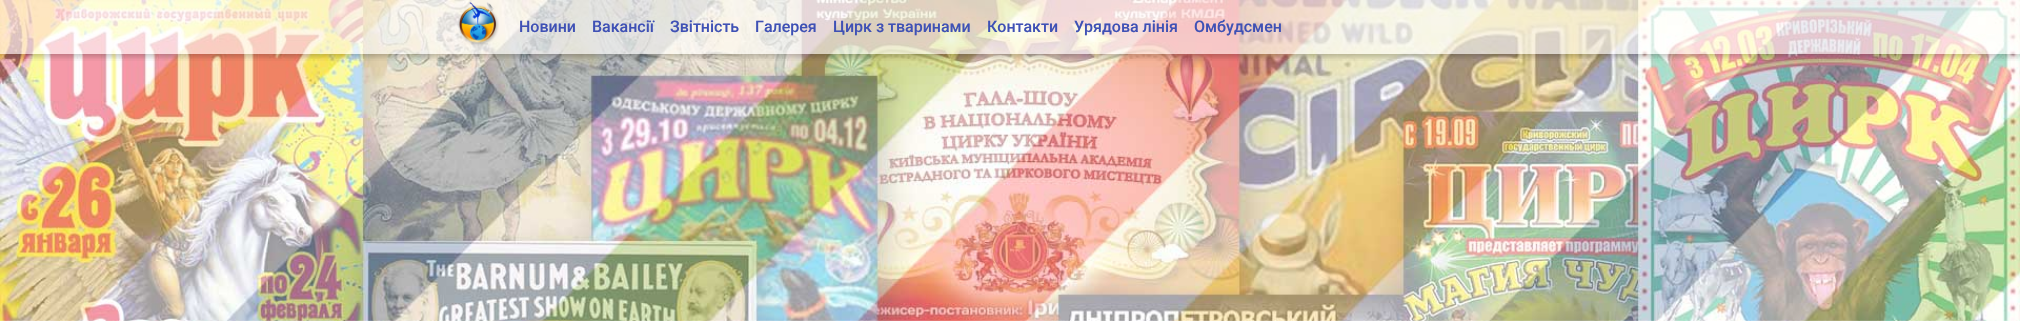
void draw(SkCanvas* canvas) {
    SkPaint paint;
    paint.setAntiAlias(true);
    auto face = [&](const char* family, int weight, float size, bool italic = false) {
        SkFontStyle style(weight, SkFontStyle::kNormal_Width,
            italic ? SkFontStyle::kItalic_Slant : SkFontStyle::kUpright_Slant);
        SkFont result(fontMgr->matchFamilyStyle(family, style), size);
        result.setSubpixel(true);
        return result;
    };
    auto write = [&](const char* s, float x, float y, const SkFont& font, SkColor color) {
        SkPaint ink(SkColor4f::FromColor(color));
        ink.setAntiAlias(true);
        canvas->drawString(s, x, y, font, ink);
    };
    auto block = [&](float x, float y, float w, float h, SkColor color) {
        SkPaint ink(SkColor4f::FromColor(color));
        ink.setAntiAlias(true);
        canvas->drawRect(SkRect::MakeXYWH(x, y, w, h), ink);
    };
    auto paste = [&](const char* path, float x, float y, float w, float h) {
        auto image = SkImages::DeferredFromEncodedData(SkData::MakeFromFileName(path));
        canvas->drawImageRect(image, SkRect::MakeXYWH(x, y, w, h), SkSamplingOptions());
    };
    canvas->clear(SK_ColorWHITE);
    paste("pic1.png", 0, 0, 2020, 321);
    canvas->save();
    canvas->clipRect(SkRect::MakeXYWH(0, 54, 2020, 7));
    paint.setColor(SkColorSetARGB(31, 0, 0, 0));
    paint.setMaskFilter(SkMaskFilter::MakeBlur(kNormal_SkBlurStyle, 5));
    canvas->drawRect(SkRect::MakeXYWH(0, 2, 2020, 54), paint);
    paint.setMaskFilter(nullptr);
    canvas->restore();
    canvas->save();
    canvas->clipRect(SkRect::MakeXYWH(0, 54, 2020, 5));
    paint.setColor(SkColorSetARGB(41, 0, 0, 0));
    paint.setMaskFilter(SkMaskFilter::MakeBlur(kNormal_SkBlurStyle, 2.5f));
    canvas->drawRect(SkRect::MakeXYWH(0, 2, 2020, 54), paint);
    paint.setMaskFilter(nullptr);
    canvas->restore();
    block(0, 0, 2020, 54, SkColorSetARGB(153, 255, 255, 255));
    paste("pic2.png", 458, 2, 41, 44);
    auto kFont1 = face("Roboto", 500, 16);
    write("Новини", 519, 32, kFont1, SkColorSetRGB(63, 81, 181));
    write("Вакансії", 592, 32, kFont1, SkColorSetRGB(63, 81, 181));
    write("Звітність", 670, 32, kFont1, SkColorSetRGB(63, 81, 181));
    write("Галерея", 755, 32, kFont1, SkColorSetRGB(63, 81, 181));
    write("Цирк з тваринами", 833, 32, kFont1, SkColorSetRGB(63, 81, 181));
    write("Контакти", 987, 32, kFont1, SkColorSetRGB(63, 81, 181));
    write("Урядова лінія", 1074, 32, kFont1, SkColorSetRGB(63, 81, 181));
    write("Омбудсмен", 1194, 32, kFont1, SkColorSetRGB(63, 81, 181));
}
